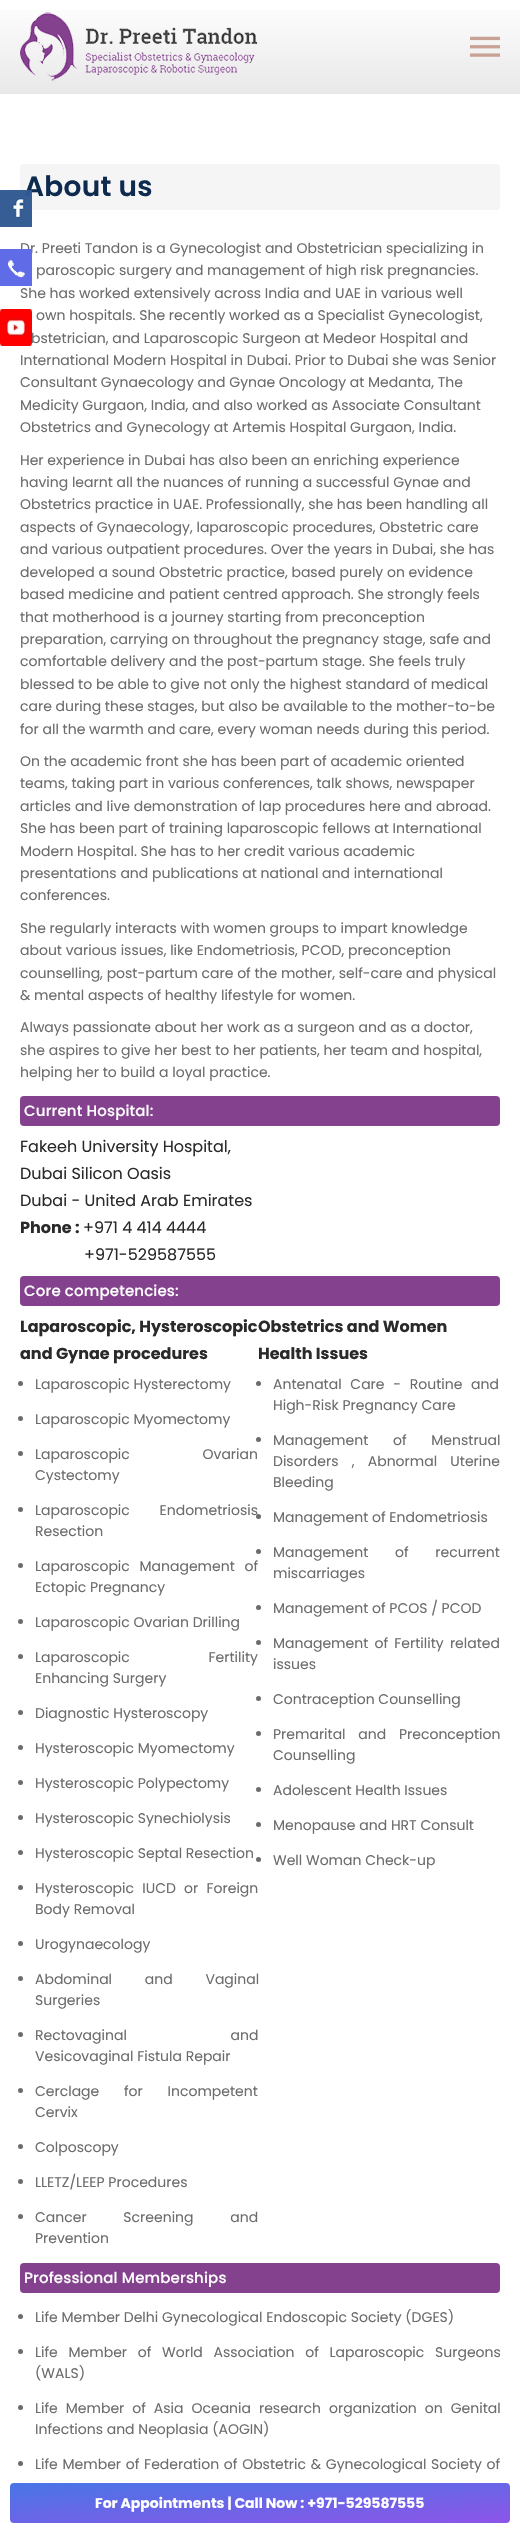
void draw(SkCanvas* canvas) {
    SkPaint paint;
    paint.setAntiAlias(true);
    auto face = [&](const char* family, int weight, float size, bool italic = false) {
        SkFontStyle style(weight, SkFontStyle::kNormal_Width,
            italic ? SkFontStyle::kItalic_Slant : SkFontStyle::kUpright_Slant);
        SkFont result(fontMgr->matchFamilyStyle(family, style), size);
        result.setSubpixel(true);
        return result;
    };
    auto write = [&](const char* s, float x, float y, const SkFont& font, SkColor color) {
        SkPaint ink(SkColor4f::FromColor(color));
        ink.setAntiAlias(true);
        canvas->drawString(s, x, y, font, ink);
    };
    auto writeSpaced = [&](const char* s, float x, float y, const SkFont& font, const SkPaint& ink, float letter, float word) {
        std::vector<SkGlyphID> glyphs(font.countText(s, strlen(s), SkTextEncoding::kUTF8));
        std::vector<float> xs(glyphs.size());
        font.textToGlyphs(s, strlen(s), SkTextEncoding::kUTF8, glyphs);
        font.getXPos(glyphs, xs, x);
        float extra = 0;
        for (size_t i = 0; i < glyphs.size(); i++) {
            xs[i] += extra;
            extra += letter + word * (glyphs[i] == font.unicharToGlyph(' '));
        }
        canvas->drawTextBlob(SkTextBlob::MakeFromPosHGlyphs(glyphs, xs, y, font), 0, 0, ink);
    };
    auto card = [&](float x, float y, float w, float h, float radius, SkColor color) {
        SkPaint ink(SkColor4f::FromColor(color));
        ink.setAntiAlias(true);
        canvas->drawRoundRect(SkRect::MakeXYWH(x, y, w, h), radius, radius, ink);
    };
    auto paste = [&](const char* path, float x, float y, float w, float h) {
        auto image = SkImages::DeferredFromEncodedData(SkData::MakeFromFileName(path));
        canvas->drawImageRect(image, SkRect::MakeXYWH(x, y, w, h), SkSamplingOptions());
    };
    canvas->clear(SK_ColorWHITE);
    card(20, 164, 480, 46, 4, SkColorSetRGB(245, 245, 245));
    auto kFont1 = face("Poppins", 600, 28);
    paint.setColor(SkColorSetRGB(14, 42, 78));
    writeSpaced("About us", 24, 196, kFont1, paint, 0.25f, 0);
    paste("pic1.png", 0, 190, 32, 37);
    auto kFont2 = face("Poppins", 400, 14);
    write("Dr. Preeti Tandon is a Gynecologist and Obstetrician specializing in", 20, 253, kFont2, SkColorSetRGB(108, 108, 108));
    paste("pic2.png", 0, 249, 32, 37);
    paste("pic3.png", 0, 309, 32, 37);
    {
        const SkColor colors[] = {SK_ColorWHITE, SkColorSetRGB(232, 232, 232)};
        const float stops[] = {0, 1};
        const SkPoint ends[] = {{260, 0}, {260, 94}};
        paint.setShader(SkGradientShader::MakeLinear(ends, colors, stops, 2, SkTileMode::kClamp));
        paint.setAlpha(255);
    }
    canvas->drawRect(SkRect::MakeXYWH(0, 10, 520, 84), paint);
    paste("pic4.png", 20, 12, 238, 69);
    paste("pic5.png", 470, 36, 30, 21);
    write("paroscopic surgery and management of high risk pregnancies.", 36, 275, kFont2, SkColorSetRGB(108, 108, 108));
    write("She has worked extensively across India and UAE in various well", 20, 298, kFont2, SkColorSetRGB(108, 108, 108));
    write("own hospitals. She recently worked as a Specialist Gynecologist,", 36, 320, kFont2, SkColorSetRGB(108, 108, 108));
    write("bstetrician, and Laparoscopic Surgeon at Medeor Hospital and", 31, 343, kFont2, SkColorSetRGB(108, 108, 108));
    write("International Modern Hospital in Dubai. Prior to Dubai she was Senior", 20, 365, kFont2, SkColorSetRGB(108, 108, 108));
    write("Consultant Gynaecology and Gynae Oncology at Medanta, The", 20, 387, kFont2, SkColorSetRGB(108, 108, 108));
    write("Medicity Gurgaon, India, and also worked as Associate Consultant", 20, 410, kFont2, SkColorSetRGB(108, 108, 108));
    write("Obstetrics and Gynecology at Artemis Hospital Gurgaon, India.", 20, 432, kFont2, SkColorSetRGB(108, 108, 108));
    write("Her experience in Dubai has also been an enriching experience", 20, 465, kFont2, SkColorSetRGB(108, 108, 108));
    write("having learnt all the nuances of running a successful Gynae and", 20, 487, kFont2, SkColorSetRGB(108, 108, 108));
    write("Obstetrics practice in UAE. Professionally, she has been handling all", 20, 509, kFont2, SkColorSetRGB(108, 108, 108));
    write("aspects of Gynaecology, laparoscopic procedures, Obstetric care", 20, 532, kFont2, SkColorSetRGB(108, 108, 108));
    write("and various outpatient procedures. Over the years in Dubai, she has", 20, 554, kFont2, SkColorSetRGB(108, 108, 108));
    write("developed a sound Obstetric practice, based purely on evidence", 20, 577, kFont2, SkColorSetRGB(108, 108, 108));
    write("based medicine and patient centred approach. She strongly feels", 20, 599, kFont2, SkColorSetRGB(108, 108, 108));
    write("that motherhood is a journey starting from preconception", 20, 622, kFont2, SkColorSetRGB(108, 108, 108));
    write("preparation, carrying on throughout the pregnancy stage, safe and", 20, 644, kFont2, SkColorSetRGB(108, 108, 108));
    write("comfortable delivery and the post-partum stage. She feels truly", 20, 666, kFont2, SkColorSetRGB(108, 108, 108));
    write("blessed to be able to give not only the highest standard of medical", 20, 689, kFont2, SkColorSetRGB(108, 108, 108));
    write("care during these stages, but also be available to the mother-to-be", 20, 711, kFont2, SkColorSetRGB(108, 108, 108));
    write("for all the warmth and care, every woman needs during this period.", 20, 734, kFont2, SkColorSetRGB(108, 108, 108));
    write("On the academic front she has been part of academic oriented", 20, 766, kFont2, SkColorSetRGB(108, 108, 108));
    write("teams, taking part in various conferences, talk shows, newspaper", 20, 788, kFont2, SkColorSetRGB(108, 108, 108));
    write("articles and live demonstration of lap procedures here and abroad.", 20, 811, kFont2, SkColorSetRGB(108, 108, 108));
    write("She has been part of training laparoscopic fellows at International", 20, 833, kFont2, SkColorSetRGB(108, 108, 108));
    write("Modern Hospital. She has to her credit various academic", 20, 856, kFont2, SkColorSetRGB(108, 108, 108));
    write("presentations and publications at national and international", 20, 878, kFont2, SkColorSetRGB(108, 108, 108));
    write("conferences.", 20, 900, kFont2, SkColorSetRGB(108, 108, 108));
    write("She regularly interacts with women groups to impart knowledge", 20, 933, kFont2, SkColorSetRGB(108, 108, 108));
    write("about various issues, like Endometriosis, PCOD, preconception", 20, 955, kFont2, SkColorSetRGB(108, 108, 108));
    write("counselling, post-partum care of the mother, self-care and physical", 20, 978, kFont2, SkColorSetRGB(108, 108, 108));
    write("& mental aspects of healthy lifestyle for women.", 20, 1000, kFont2, SkColorSetRGB(108, 108, 108));
    write("Always passionate about her work as a surgeon and as a doctor,", 20, 1032, kFont2, SkColorSetRGB(108, 108, 108));
    write("she aspires to give her best to her patients, her team and hospital,", 20, 1055, kFont2, SkColorSetRGB(108, 108, 108));
    write("helping her to build a loyal practice.", 20, 1077, kFont2, SkColorSetRGB(108, 108, 108));
    card(20, 1096, 480, 30, 4, SkColorSetRGB(132, 65, 142));
    auto kFont3 = face("Poppins", 500, 15);
    paint.setShader(nullptr);
    paint.setColor(SK_ColorWHITE);
    writeSpaced("Current Hospital:", 24, 1116, kFont3, paint, 0.15f, 0);
    auto kFont4 = face("Poppins", 400, 16);
    write("Fakeeh University Hospital,", 20, 1152, kFont4, SkColorSetRGB(43, 42, 42));
    write("Dubai Silicon Oasis", 20, 1179, kFont4, SkColorSetRGB(43, 42, 42));
    write("Dubai - United Arab Emirates", 20, 1206, kFont4, SkColorSetRGB(43, 42, 42));
    auto kFont5 = face("Poppins", 700, 16);
    write("Phone :", 20, 1233, kFont5, SkColorSetRGB(43, 42, 42));
    write("+971 4 414 4444", 83, 1233, kFont4, SkColorSetRGB(43, 42, 42));
    write("+971-529587555", 84, 1260, kFont4, SkColorSetRGB(43, 42, 42));
    card(20, 1276, 480, 30, 4, SkColorSetRGB(132, 65, 142));
    writeSpaced("Core competencies:", 24, 1296, kFont3, paint, 0.15f, 0);
    write("Laparoscopic, Hysteroscopic", 20, 1332, kFont5, SkColorSetRGB(43, 42, 42));
    write("and Gynae procedures", 20, 1359, kFont5, SkColorSetRGB(43, 42, 42));
    write("Obstetrics and Women", 258, 1332, kFont5, SkColorSetRGB(43, 42, 42));
    write("Health Issues", 258, 1359, kFont5, SkColorSetRGB(43, 42, 42));
    paint.setColor(SkColorSetRGB(108, 108, 108));
    canvas->drawCircle(20.5f, 1383.5f, 2.5f, paint);
    write("Laparoscopic Hysterectomy", 35, 1389, kFont2, SkColorSetRGB(108, 108, 108));
    canvas->drawCircle(20.5f, 1418.5f, 2.5f, paint);
    write("Laparoscopic Myomectomy", 35, 1424, kFont2, SkColorSetRGB(108, 108, 108));
    canvas->drawCircle(20.5f, 1453.5f, 2.5f, paint);
    writeSpaced("Laparoscopic Ovarian", 35, 1459, kFont2, paint, 0, 69);
    write("Cystectomy", 35, 1480, kFont2, SkColorSetRGB(108, 108, 108));
    canvas->drawCircle(20.5f, 1509.5f, 2.5f, paint);
    writeSpaced("Laparoscopic Endometriosis", 35, 1515, kFont2, paint, 0, 26);
    write("Resection", 35, 1536, kFont2, SkColorSetRGB(108, 108, 108));
    canvas->drawCircle(20.5f, 1565.5f, 2.5f, paint);
    writeSpaced("Laparoscopic Management of", 35, 1571, kFont2, paint, 0, 6);
    write("Ectopic Pregnancy", 35, 1592, kFont2, SkColorSetRGB(108, 108, 108));
    canvas->drawCircle(20.5f, 1621.5f, 2.5f, paint);
    write("Laparoscopic Ovarian Drilling", 35, 1627, kFont2, SkColorSetRGB(108, 108, 108));
    canvas->drawCircle(20.5f, 1656.5f, 2.5f, paint);
    writeSpaced("Laparoscopic Fertility", 35, 1662, kFont2, paint, 0, 75);
    write("Enhancing Surgery", 35, 1683, kFont2, SkColorSetRGB(108, 108, 108));
    canvas->drawCircle(20.5f, 1712.5f, 2.5f, paint);
    write("Diagnostic Hysteroscopy", 35, 1718, kFont2, SkColorSetRGB(108, 108, 108));
    canvas->drawCircle(20.5f, 1747.5f, 2.5f, paint);
    write("Hysteroscopic Myomectomy", 35, 1753, kFont2, SkColorSetRGB(108, 108, 108));
    canvas->drawCircle(20.5f, 1782.5f, 2.5f, paint);
    write("Hysteroscopic Polypectomy", 35, 1788, kFont2, SkColorSetRGB(108, 108, 108));
    canvas->drawCircle(20.5f, 1817.5f, 2.5f, paint);
    write("Hysteroscopic Synechiolysis", 35, 1823, kFont2, SkColorSetRGB(108, 108, 108));
    canvas->drawCircle(20.5f, 1852.5f, 2.5f, paint);
    write("Hysteroscopic Septal Resection", 35, 1858, kFont2, SkColorSetRGB(108, 108, 108));
    canvas->drawCircle(20.5f, 1887.5f, 2.5f, paint);
    writeSpaced("Hysteroscopic IUCD or Foreign", 35, 1893, kFont2, paint, 0, 4.5f);
    write("Body Removal", 35, 1914, kFont2, SkColorSetRGB(108, 108, 108));
    canvas->drawCircle(20.5f, 1943.5f, 2.5f, paint);
    write("Urogynaecology", 35, 1949, kFont2, SkColorSetRGB(108, 108, 108));
    canvas->drawCircle(20.5f, 1978.5f, 2.5f, paint);
    writeSpaced("Abdominal and Vaginal", 35, 1984, kFont2, paint, 0, 29);
    write("Surgeries", 35, 2005, kFont2, SkColorSetRGB(108, 108, 108));
    canvas->drawCircle(20.5f, 2034.5f, 2.5f, paint);
    writeSpaced("Rectovaginal and", 35, 2040, kFont2, paint, 0, 100);
    write("Vesicovaginal Fistula Repair", 35, 2061, kFont2, SkColorSetRGB(108, 108, 108));
    canvas->drawCircle(20.5f, 2090.5f, 2.5f, paint);
    writeSpaced("Cerclage for Incompetent", 35, 2096, kFont2, paint, 0, 21);
    write("Cervix", 35, 2117, kFont2, SkColorSetRGB(108, 108, 108));
    canvas->drawCircle(20.5f, 2146.5f, 2.5f, paint);
    write("Colposcopy", 35, 2152, kFont2, SkColorSetRGB(108, 108, 108));
    canvas->drawCircle(20.5f, 2181.5f, 2.5f, paint);
    write("LLETZ/LEEP Procedures", 35, 2187, kFont2, SkColorSetRGB(108, 108, 108));
    canvas->drawCircle(20.5f, 2216.5f, 2.5f, paint);
    writeSpaced("Cancer Screening and", 35, 2222, kFont2, paint, 0, 33);
    write("Prevention", 35, 2243, kFont2, SkColorSetRGB(108, 108, 108));
    canvas->drawCircle(258.5f, 1383.5f, 2.5f, paint);
    writeSpaced("Antenatal Care - Routine and", 273, 1389, kFont2, paint, 0, 5);
    write("High-Risk Pregnancy Care", 273, 1410, kFont2, SkColorSetRGB(108, 108, 108));
    canvas->drawCircle(258.5f, 1439.5f, 2.5f, paint);
    writeSpaced("Management of Menstrual", 273, 1445, kFont2, paint, 0, 21);
    writeSpaced("Disorders , Abnormal Uterine", 273, 1466, kFont2, paint, 0, 9.5f);
    write("Bleeding", 273, 1487, kFont2, SkColorSetRGB(108, 108, 108));
    canvas->drawCircle(258.5f, 1516.5f, 2.5f, paint);
    write("Management of Endometriosis", 273, 1522, kFont2, SkColorSetRGB(108, 108, 108));
    canvas->drawCircle(258.5f, 1551.5f, 2.5f, paint);
    writeSpaced("Management of recurrent", 273, 1557, kFont2, paint, 0, 23);
    write("miscarriages", 273, 1578, kFont2, SkColorSetRGB(108, 108, 108));
    canvas->drawCircle(258.5f, 1607.5f, 2.5f, paint);
    write("Management of PCOS / PCOD", 273, 1613, kFont2, SkColorSetRGB(108, 108, 108));
    canvas->drawCircle(258.5f, 1642.5f, 2.5f, paint);
    writeSpaced("Management of Fertility related", 273, 1648, kFont2, paint, 0, 2.5f);
    write("issues", 273, 1669, kFont2, SkColorSetRGB(108, 108, 108));
    canvas->drawCircle(258.5f, 1698.5f, 2.5f, paint);
    write("Contraception Counselling", 273, 1704, kFont2, SkColorSetRGB(108, 108, 108));
    canvas->drawCircle(258.5f, 1733.5f, 2.5f, paint);
    writeSpaced("Premarital and Preconception", 273, 1739, kFont2, paint, 0, 9);
    write("Counselling", 273, 1760, kFont2, SkColorSetRGB(108, 108, 108));
    canvas->drawCircle(258.5f, 1789.5f, 2.5f, paint);
    write("Adolescent Health Issues", 273, 1795, kFont2, SkColorSetRGB(108, 108, 108));
    canvas->drawCircle(258.5f, 1824.5f, 2.5f, paint);
    write("Menopause and HRT Consult", 273, 1830, kFont2, SkColorSetRGB(108, 108, 108));
    canvas->drawCircle(258.5f, 1859.5f, 2.5f, paint);
    write("Well Woman Check-up", 273, 1865, kFont2, SkColorSetRGB(108, 108, 108));
    card(20, 2263, 480, 30, 4, SkColorSetRGB(132, 65, 142));
    paint.setColor(SK_ColorWHITE);
    writeSpaced("Professional Memberships", 24, 2283, kFont3, paint, 0.15f, 0);
    paint.setColor(SkColorSetRGB(108, 108, 108));
    canvas->drawCircle(20.5f, 2316.5f, 2.5f, paint);
    write("Life Member Delhi Gynecological Endoscopic Society (DGES)", 35, 2322, kFont2, SkColorSetRGB(108, 108, 108));
    canvas->drawCircle(20.5f, 2351.5f, 2.5f, paint);
    writeSpaced("Life Member of World Association of Laparoscopic Surgeons", 35, 2357, kFont2, paint, 0, 7);
    write("(WALS)", 35, 2378, kFont2, SkColorSetRGB(108, 108, 108));
    canvas->drawCircle(20.5f, 2407.5f, 2.5f, paint);
    writeSpaced("Life Member of Asia Oceania research organization on Genital", 35, 2413, kFont2, paint, 0, 4.25f);
    write("Infections and Neoplasia (AOGIN)", 35, 2434, kFont2, SkColorSetRGB(108, 108, 108));
    canvas->drawCircle(20.5f, 2463.5f, 2.5f, paint);
    writeSpaced("Life Member of Federation of Obstetric & Gynecological Society of", 35, 2469, kFont2, paint, 0, 1);
    {
        const SkColor colors[] = {SkColorSetRGB(71, 118, 230), SkColorSetRGB(142, 84, 233)};
        const float stops[] = {0, 1};
        const SkPoint ends[] = {{257, 2463}, {263, 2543}};
        paint.setShader(SkGradientShader::MakeLinear(ends, colors, stops, 2, SkTileMode::kClamp));
        paint.setAlpha(255);
    }
    canvas->drawRoundRect(SkRect::MakeXYWH(10, 2483, 500, 40), 4, 4, paint);
    auto kFont6 = face("Poppins", 700, 14);
    write("For Appointments | Call Now : +971-529587555", 95, 2508, kFont6, SK_ColorWHITE);
}
